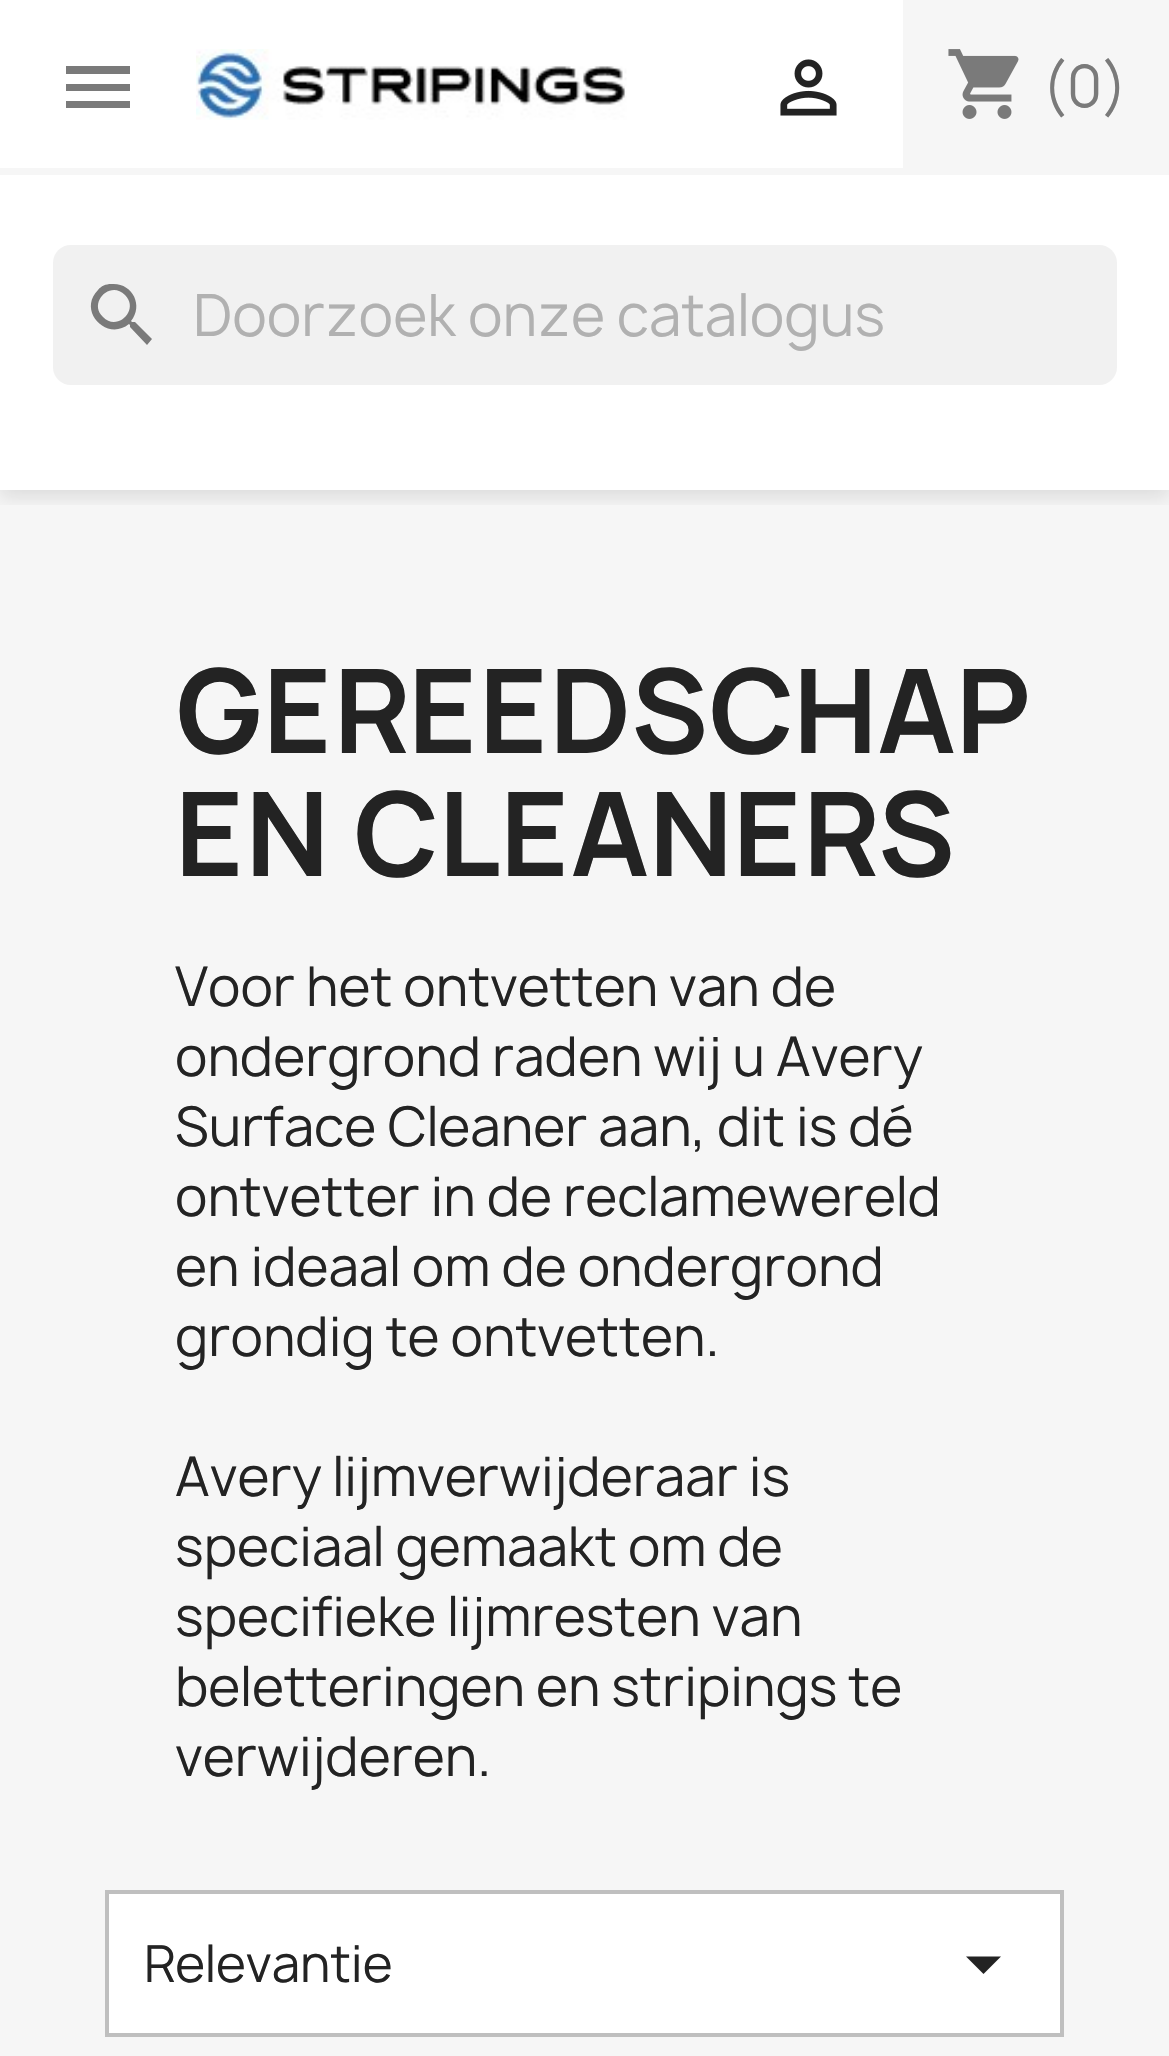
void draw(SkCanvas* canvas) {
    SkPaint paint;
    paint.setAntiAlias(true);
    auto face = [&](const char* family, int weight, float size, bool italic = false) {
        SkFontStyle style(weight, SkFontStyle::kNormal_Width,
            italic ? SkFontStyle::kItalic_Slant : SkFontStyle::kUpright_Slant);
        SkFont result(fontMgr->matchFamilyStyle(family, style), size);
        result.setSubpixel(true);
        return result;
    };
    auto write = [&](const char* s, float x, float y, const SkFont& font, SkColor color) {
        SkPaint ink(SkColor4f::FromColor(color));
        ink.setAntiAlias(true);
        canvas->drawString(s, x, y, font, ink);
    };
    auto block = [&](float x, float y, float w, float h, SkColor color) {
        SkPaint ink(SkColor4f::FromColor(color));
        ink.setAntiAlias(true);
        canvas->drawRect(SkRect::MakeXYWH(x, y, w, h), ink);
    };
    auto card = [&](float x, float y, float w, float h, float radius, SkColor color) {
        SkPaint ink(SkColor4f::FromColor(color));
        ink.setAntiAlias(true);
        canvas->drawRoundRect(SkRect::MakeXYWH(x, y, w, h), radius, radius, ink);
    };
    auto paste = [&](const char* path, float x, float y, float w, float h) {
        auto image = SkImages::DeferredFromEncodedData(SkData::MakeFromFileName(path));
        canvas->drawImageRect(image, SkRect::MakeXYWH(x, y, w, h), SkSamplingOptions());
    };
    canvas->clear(SK_ColorWHITE);
    block(0, 490, 1169, 1566, SkColorSetRGB(246, 246, 246));
    canvas->save();
    canvas->clipRect(SkRect::MakeXYWH(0, 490, 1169, 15));
    paint.setColor(SkColorSetARGB(28, 0, 0, 0));
    paint.setMaskFilter(SkMaskFilter::MakeBlur(kNormal_SkBlurStyle, 9));
    canvas->drawRect(SkRect::MakeXYWH(0, 7, 1169, 490), paint);
    paint.setMaskFilter(nullptr);
    canvas->restore();
    block(0, 168, 1169, 7, SkColorSetRGB(246, 246, 246));
    paint.setColor(SkColorSetRGB(122, 122, 122));
    canvas->drawPath(SkPathBuilder().moveTo(66, 66).lineTo(130, 66).lineTo(130, 74).lineTo(66, 74).close().moveTo(66, 91).lineTo(66, 84).lineTo(130, 84).lineTo(130, 91).close().moveTo(66, 108).lineTo(66, 101).lineTo(130, 101).lineTo(130, 108).close().detach(), paint);
    paste("pic1.png", 196, 49, 431, 71);
    paste("pic2.png", 780, 59, 57, 57);
    block(903, 0, 266, 168, SkColorSetRGB(246, 246, 246));
    paste("pic3.png", 948, 49, 71, 70);
    auto kFont1 = face("Manrope", 400, 56);
    write("(0)", 1042, 107, kFont1, SkColorSetRGB(122, 122, 122));
    card(53, 245, 1064, 140, 18, SkColorSetRGB(241, 241, 241));
    canvas->drawPath(SkPathBuilder().moveTo(103, 317).cubicTo(117, 332, 140, 310, 125, 295).cubicTo(110, 280, 88, 303, 103, 317).close().moveTo(135, 322).lineTo(152, 339).lineTo(147, 345).lineTo(130, 327).lineTo(130, 325).lineTo(129, 324).cubicTo(107, 342, 77, 311, 98, 290).cubicTo(101, 286, 106, 284, 111, 284).cubicTo(132, 282, 144, 305, 131, 321).lineTo(132, 322).close().detach(), paint);
    write("Doorzoek onze catalogus", 193, 336, kFont1, SkColorSetRGB(177, 177, 177));
    auto kFont2 = face("Manrope", 700, 112);
    write("GEREEDSCHAP", 175, 753, kFont2, SkColorSetRGB(35, 35, 35));
    write("EN CLEANERS", 175, 876, kFont2, SkColorSetRGB(35, 35, 35));
    auto kFont3 = face("Manrope", 400, 52.5f);
    write("Voor het ontvetten van de", 175, 1006, kFont3, SkColorSetRGB(35, 35, 35));
    write("ondergrond raden wij u Avery", 175, 1076, kFont3, SkColorSetRGB(35, 35, 35));
    write("Surface Cleaner aan, dit is dé", 175, 1146, kFont3, SkColorSetRGB(35, 35, 35));
    write("ontvetter in de reclamewereld", 175, 1216, kFont3, SkColorSetRGB(35, 35, 35));
    write("en ideaal om de ondergrond", 175, 1286, kFont3, SkColorSetRGB(35, 35, 35));
    write("grondig te ontvetten.", 175, 1356, kFont3, SkColorSetRGB(35, 35, 35));
    write("Avery lijmverwijderaar is", 175, 1496, kFont3, SkColorSetRGB(35, 35, 35));
    write("speciaal gemaakt om de", 175, 1566, kFont3, SkColorSetRGB(35, 35, 35));
    write("specifieke lijmresten van", 175, 1636, kFont3, SkColorSetRGB(35, 35, 35));
    write("beletteringen en stripings te", 175, 1706, kFont3, SkColorSetRGB(35, 35, 35));
    write("verwijderen.", 175, 1776, kFont3, SkColorSetRGB(35, 35, 35));
    paint.setColor(SK_ColorWHITE);
    canvas->drawRect(SkRect::MakeXYWH(107, 1892, 955, 143), paint);
    paint.setStyle(SkPaint::kStroke_Style);
    paint.setStrokeWidth(4);
    paint.setColor(SkColorSetRGB(191, 191, 191));
    canvas->drawRect(SkRect::MakeXYWH(107, 1892, 955, 143), paint);
    auto kFont4 = face("Manrope", 400, 49);
    write("Relevantie", 144, 1982, kFont4, SkColorSetRGB(35, 35, 35));
    paint.setStyle(SkPaint::kFill_Style);
    paint.setColor(SkColorSetRGB(35, 35, 35));
    canvas->drawPath(SkPathBuilder().moveTo(966, 1956.5f).lineTo(1001, 1956.5f).lineTo(983.5f, 1974).close().detach(), paint);
}
